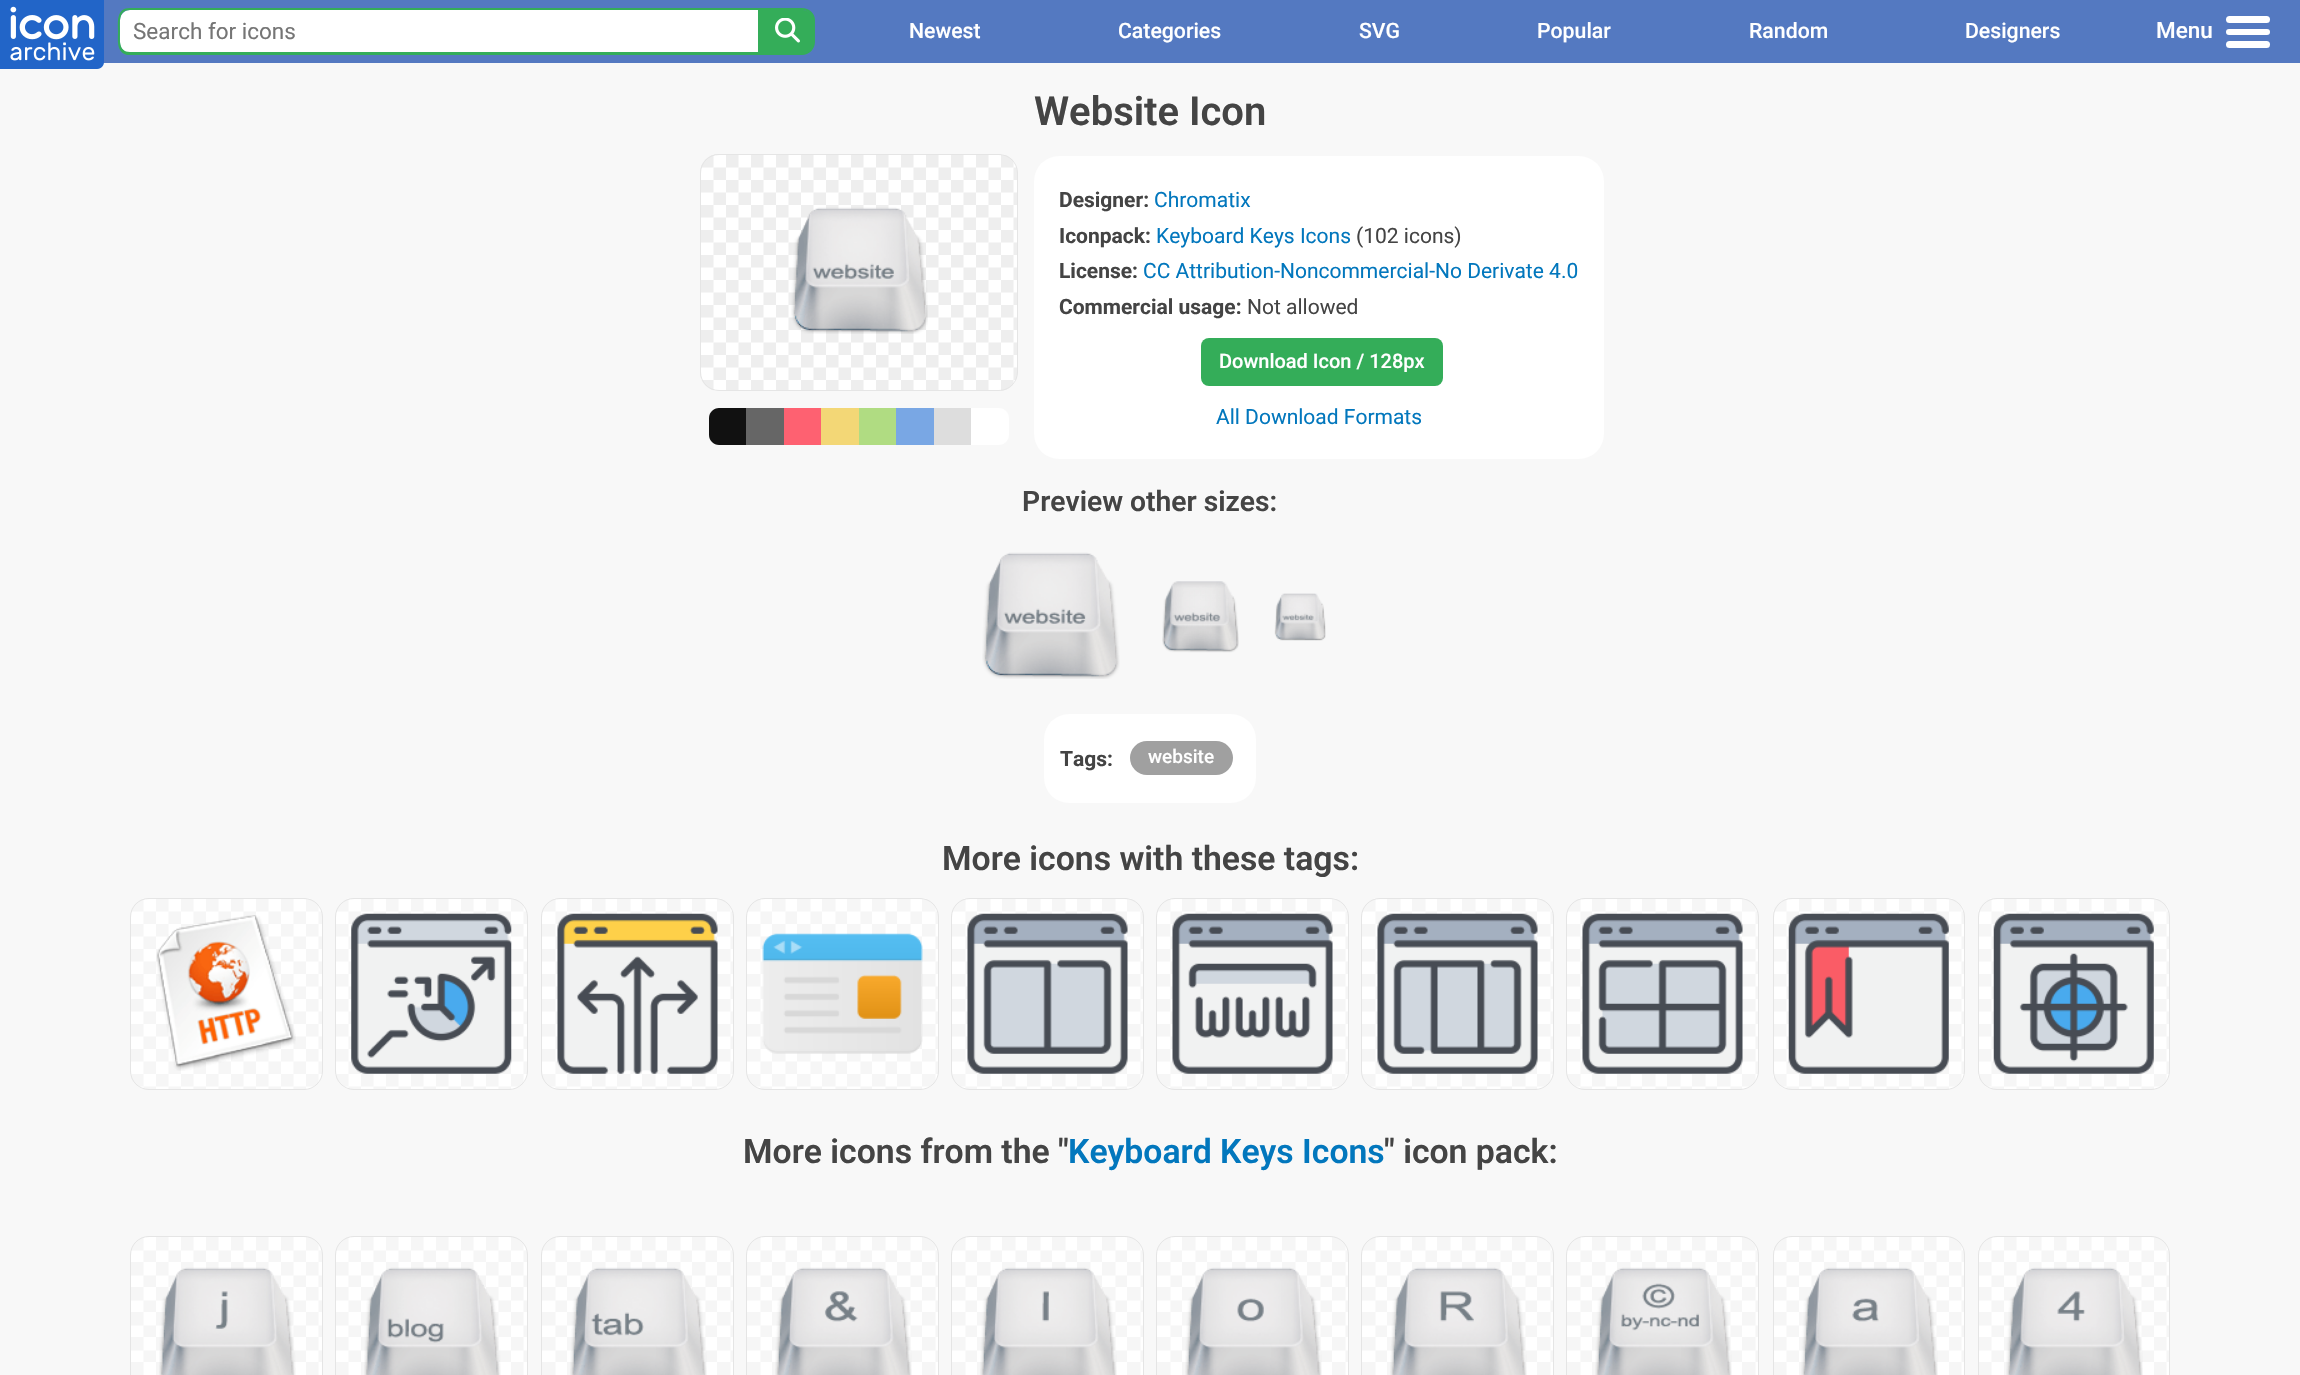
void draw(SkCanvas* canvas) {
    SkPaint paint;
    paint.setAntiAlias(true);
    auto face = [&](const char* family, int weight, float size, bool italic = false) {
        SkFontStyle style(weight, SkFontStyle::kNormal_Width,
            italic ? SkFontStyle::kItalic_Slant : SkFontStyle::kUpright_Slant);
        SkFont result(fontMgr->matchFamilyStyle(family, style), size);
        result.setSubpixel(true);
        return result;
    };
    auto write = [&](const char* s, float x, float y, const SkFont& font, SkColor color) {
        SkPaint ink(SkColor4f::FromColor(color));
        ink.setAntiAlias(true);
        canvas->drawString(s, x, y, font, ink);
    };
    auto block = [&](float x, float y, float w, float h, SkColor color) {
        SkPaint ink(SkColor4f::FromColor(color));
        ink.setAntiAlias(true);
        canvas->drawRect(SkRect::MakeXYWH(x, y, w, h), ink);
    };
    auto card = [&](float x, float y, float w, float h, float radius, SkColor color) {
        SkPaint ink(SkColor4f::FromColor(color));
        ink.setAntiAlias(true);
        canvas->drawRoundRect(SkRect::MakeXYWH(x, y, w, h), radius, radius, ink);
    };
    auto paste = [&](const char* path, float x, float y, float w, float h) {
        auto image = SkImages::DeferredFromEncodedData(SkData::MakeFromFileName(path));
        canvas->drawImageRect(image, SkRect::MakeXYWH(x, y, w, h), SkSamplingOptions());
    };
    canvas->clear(SkColorSetRGB(248, 248, 248));
    block(103, 0, 2197, 63, SkColorSetRGB(84, 121, 193));
    paste("pic1.png", 0, 0, 104, 69);
    paint.setColor(SK_ColorWHITE);
    canvas->drawPath(SkPathBuilder().moveTo(130, 10).lineTo(758, 10).lineTo(758, 53).lineTo(130, 53).cubicTo(124.5f, 53, 120, 48.5f, 120, 43).lineTo(120, 20).cubicTo(120, 14.5f, 124.5f, 10, 130, 10).close().detach(), paint);
    paint.setColor(SkColorSetRGB(52, 173, 89));
    canvas->drawPath(SkPathBuilder(SkPathFillType::kEvenOdd).moveTo(130, 8).lineTo(758, 8).lineTo(758, 55).lineTo(127, 55).cubicTo(116, 52, 118, 40, 118, 31).cubicTo(118, 22, 116, 8, 130, 8).close().moveTo(130, 10).lineTo(758, 10).lineTo(758, 52).lineTo(130, 52).cubicTo(118, 52, 120, 39, 120, 31).cubicTo(120, 23, 118, 10, 130, 10).close().detach(), paint);
    auto kFont1 = face("Roboto", 400, 22.5f);
    write("Search for icons", 133, 39, kFont1, SkColorSetRGB(117, 117, 117));
    canvas->drawPath(SkPathBuilder().moveTo(758, 10).lineTo(803, 10).cubicTo(808.5f, 10, 813, 14.5f, 813, 20).lineTo(813, 43).cubicTo(813, 48.5f, 808.5f, 53, 803, 53).lineTo(758, 53).close().detach(), paint);
    canvas->drawPath(SkPathBuilder(SkPathFillType::kEvenOdd).moveTo(758, 8).lineTo(802, 8).cubicTo(809, 8, 815, 13, 815, 20).lineTo(815, 42).cubicTo(815, 49, 809, 55, 802, 55).lineTo(758, 55).close().moveTo(758, 10).lineTo(802, 10).cubicTo(808, 10, 812, 14, 812, 20).lineTo(812, 42).cubicTo(812, 48, 808, 52, 802, 52).lineTo(758, 52).close().detach(), paint);
    paste("pic2.png", 775, 18, 25, 25);
    auto kFont2 = face("Roboto", 500, 21.25f);
    write("Newest", 909, 38, kFont2, SK_ColorWHITE);
    write("Categories", 1118, 38, kFont2, SK_ColorWHITE);
    write("SVG", 1359, 38, kFont2, SK_ColorWHITE);
    write("Popular", 1537, 38, kFont2, SK_ColorWHITE);
    write("Random", 1749, 38, kFont2, SK_ColorWHITE);
    write("Designers", 1965, 38, kFont2, SK_ColorWHITE);
    auto kFont3 = face("Roboto", 500, 22.5f);
    write("Menu", 2156, 38, kFont3, SK_ColorWHITE);
    card(2226, 16, 44, 7, 3.5f, SK_ColorWHITE);
    card(2226, 29, 44, 6, 3, SK_ColorWHITE);
    card(2226, 41, 44, 7, 3.5f, SK_ColorWHITE);
    auto kFont4 = face("Roboto", 600, 40);
    write("Website Icon", 1034, 125, kFont4, SkColorSetRGB(68, 68, 68));
    paste("pic3.png", 700, 154, 317, 237);
    paint.setStyle(SkPaint::kStroke_Style);
    paint.setStrokeWidth(1);
    paint.setColor(SkColorSetRGB(229, 229, 229));
    canvas->drawRoundRect(SkRect::MakeXYWH(700.5f, 154.5f, 317, 236), 18.5f, 18.5f, paint);
    paste("pic4.png", 791, 207, 137, 127);
    paint.setStyle(SkPaint::kFill_Style);
    paint.setColor(SkColorSetRGB(17, 17, 17));
    canvas->drawPath(SkPathBuilder().moveTo(719, 408).lineTo(746, 408).lineTo(746, 445).lineTo(719, 445).cubicTo(713.5f, 445, 709, 440.5f, 709, 435).lineTo(709, 418).cubicTo(709, 412.5f, 713.5f, 408, 719, 408).close().detach(), paint);
    block(746, 408, 38, 37, SkColorSetRGB(102, 102, 102));
    block(784, 408, 37, 37, SkColorSetRGB(254, 97, 113));
    block(821, 408, 38, 37, SkColorSetRGB(243, 215, 118));
    block(859, 408, 37, 37, SkColorSetRGB(176, 220, 130));
    block(896, 408, 38, 37, SkColorSetRGB(121, 167, 228));
    block(934, 408, 37, 37, SkColorSetRGB(221, 221, 221));
    paint.setColor(SK_ColorWHITE);
    canvas->drawPath(SkPathBuilder().moveTo(971, 408).lineTo(999, 408).cubicTo(1004.5f, 408, 1009, 412.5f, 1009, 418).lineTo(1009, 435).cubicTo(1009, 440.5f, 1004.5f, 445, 999, 445).lineTo(971, 445).close().detach(), paint);
    card(1034, 156, 570, 303, 25, SK_ColorWHITE);
    auto kFont5 = face("Roboto", 700, 21);
    write("Designer:", 1059, 207, kFont5, SkColorSetRGB(68, 68, 68));
    auto kFont6 = face("Roboto", 400, 21);
    write("Chromatix", 1154, 207, kFont6, SkColorSetRGB(2, 119, 189));
    write("Iconpack:", 1059, 243, kFont5, SkColorSetRGB(68, 68, 68));
    write("Keyboard Keys Icons", 1156, 243, kFont6, SkColorSetRGB(2, 119, 189));
    write("(102 icons)", 1356, 243, kFont6, SkColorSetRGB(68, 68, 68));
    write("License:", 1059, 278, kFont5, SkColorSetRGB(68, 68, 68));
    write("CC Attribution-Noncommercial-No Derivate 4.0", 1143, 278, kFont6, SkColorSetRGB(2, 119, 189));
    write("Commercial usage:", 1059, 314, kFont5, SkColorSetRGB(68, 68, 68));
    write("Not allowed", 1247, 314, kFont6, SkColorSetRGB(68, 68, 68));
    card(1201, 338, 242, 48, 8, SkColorSetRGB(52, 173, 89));
    auto kFont7 = face("Roboto", 500, 20);
    write("Download Icon / 128px", 1219, 368, kFont7, SK_ColorWHITE);
    write("All Download Formats", 1216, 424, kFont6, SkColorSetRGB(2, 119, 189));
    auto kFont8 = face("Roboto", 600, 28.25f);
    write("Preview other sizes:", 1022, 511, kFont8, SkColorSetRGB(68, 68, 68));
    paste("pic5.png", 982, 552, 138, 127);
    paste("pic6.png", 1162, 581, 77, 72);
    paste("pic7.png", 1274, 593, 52, 48);
    card(1044, 714, 212, 89, 25, SK_ColorWHITE);
    write("Tags:", 1060, 766, kFont5, SkColorSetRGB(68, 68, 68));
    card(1130, 741, 103, 34, 17, SkColorSetRGB(160, 160, 160));
    auto kFont9 = face("Roboto", 500, 19);
    write("website", 1148, 763, kFont9, SK_ColorWHITE);
    auto kFont10 = face("Roboto", 600, 33.75f);
    write("More icons with these tags:", 942, 870, kFont10, SkColorSetRGB(68, 68, 68));
    paste("pic8.png", 130, 898, 192, 192);
    paint.setStyle(SkPaint::kStroke_Style);
    paint.setColor(SkColorSetRGB(229, 229, 229));
    canvas->drawRoundRect(SkRect::MakeXYWH(130.5f, 898.5f, 192, 191), 18.5f, 18.5f, paint);
    paste("pic9.png", 156, 915, 140, 156);
    paste("pic8.png", 335, 898, 192, 192);
    canvas->drawRoundRect(SkRect::MakeXYWH(335.5f, 898.5f, 192, 191), 18.5f, 18.5f, paint);
    paste("pic10.png", 351, 913, 161, 161);
    paste("pic11.png", 542, 898, 191, 192);
    canvas->drawRoundRect(SkRect::MakeXYWH(541.5f, 898.5f, 192, 191), 18.5f, 18.5f, paint);
    paste("pic12.png", 557, 913, 161, 161);
    paste("pic13.png", 747, 898, 191, 192);
    canvas->drawRoundRect(SkRect::MakeXYWH(746.5f, 898.5f, 192, 191), 18.5f, 18.5f, paint);
    paste("pic14.png", 762, 933, 161, 121);
    paste("pic11.png", 952, 898, 191, 192);
    canvas->drawRoundRect(SkRect::MakeXYWH(951.5f, 898.5f, 192, 191), 18.5f, 18.5f, paint);
    paste("pic15.png", 967, 913, 161, 161);
    paste("pic16.png", 1157, 898, 191, 192);
    canvas->drawRoundRect(SkRect::MakeXYWH(1156.5f, 898.5f, 192, 191), 18.5f, 18.5f, paint);
    paste("pic17.png", 1172, 913, 161, 161);
    paste("pic11.png", 1362, 898, 191, 192);
    canvas->drawRoundRect(SkRect::MakeXYWH(1361.5f, 898.5f, 192, 191), 18.5f, 18.5f, paint);
    paste("pic18.png", 1377, 913, 161, 161);
    paste("pic11.png", 1567, 898, 191, 192);
    canvas->drawRoundRect(SkRect::MakeXYWH(1566.5f, 898.5f, 192, 191), 18.5f, 18.5f, paint);
    paste("pic19.png", 1582, 913, 161, 161);
    paste("pic20.png", 1773, 898, 192, 192);
    canvas->drawRoundRect(SkRect::MakeXYWH(1773.5f, 898.5f, 191, 191), 18.5f, 18.5f, paint);
    paste("pic21.png", 1788, 913, 161, 161);
    paste("pic22.png", 1978, 898, 192, 192);
    canvas->drawRoundRect(SkRect::MakeXYWH(1978.5f, 898.5f, 191, 191), 18.5f, 18.5f, paint);
    paste("pic23.png", 1993, 913, 161, 161);
    write("More icons from the \"", 743, 1163, kFont10, SkColorSetRGB(68, 68, 68));
    write("Keyboard Keys Icons", 1068, 1163, kFont10, SkColorSetRGB(2, 119, 189));
    write("\" icon pack:", 1384, 1163, kFont10, SkColorSetRGB(68, 68, 68));
    paste("pic24.png", 130, 1237, 192, 138);
    canvas->drawRoundRect(SkRect::MakeXYWH(130.5f, 1236.5f, 192, 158), 18.5f, 18.5f, paint);
    paste("pic25.png", 159, 1267, 137, 108);
    paste("pic24.png", 335, 1237, 192, 138);
    canvas->drawRoundRect(SkRect::MakeXYWH(335.5f, 1236.5f, 192, 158), 18.5f, 18.5f, paint);
    paste("pic26.png", 364, 1267, 137, 108);
    paste("pic27.png", 542, 1237, 191, 138);
    canvas->drawRoundRect(SkRect::MakeXYWH(541.5f, 1236.5f, 192, 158), 18.5f, 18.5f, paint);
    paste("pic28.png", 570, 1267, 137, 108);
    paste("pic29.png", 747, 1237, 191, 138);
    canvas->drawRoundRect(SkRect::MakeXYWH(746.5f, 1236.5f, 192, 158), 18.5f, 18.5f, paint);
    paste("pic30.png", 775, 1267, 137, 108);
    paste("pic27.png", 952, 1237, 191, 138);
    canvas->drawRoundRect(SkRect::MakeXYWH(951.5f, 1236.5f, 192, 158), 18.5f, 18.5f, paint);
    paste("pic31.png", 980, 1267, 137, 108);
    paste("pic27.png", 1157, 1237, 191, 138);
    canvas->drawRoundRect(SkRect::MakeXYWH(1156.5f, 1236.5f, 192, 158), 18.5f, 18.5f, paint);
    paste("pic32.png", 1185, 1267, 137, 108);
    paste("pic27.png", 1362, 1237, 191, 138);
    canvas->drawRoundRect(SkRect::MakeXYWH(1361.5f, 1236.5f, 192, 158), 18.5f, 18.5f, paint);
    paste("pic33.png", 1390, 1267, 137, 108);
    paste("pic27.png", 1567, 1237, 191, 138);
    canvas->drawRoundRect(SkRect::MakeXYWH(1566.5f, 1236.5f, 192, 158), 18.5f, 18.5f, paint);
    paste("pic34.png", 1595, 1267, 137, 108);
    paste("pic35.png", 1773, 1237, 192, 138);
    canvas->drawRoundRect(SkRect::MakeXYWH(1773.5f, 1236.5f, 191, 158), 18.5f, 18.5f, paint);
    paste("pic36.png", 1801, 1267, 137, 108);
    paste("pic37.png", 1978, 1237, 192, 138);
    canvas->drawRoundRect(SkRect::MakeXYWH(1978.5f, 1236.5f, 191, 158), 18.5f, 18.5f, paint);
    paste("pic38.png", 2006, 1267, 137, 108);
}
